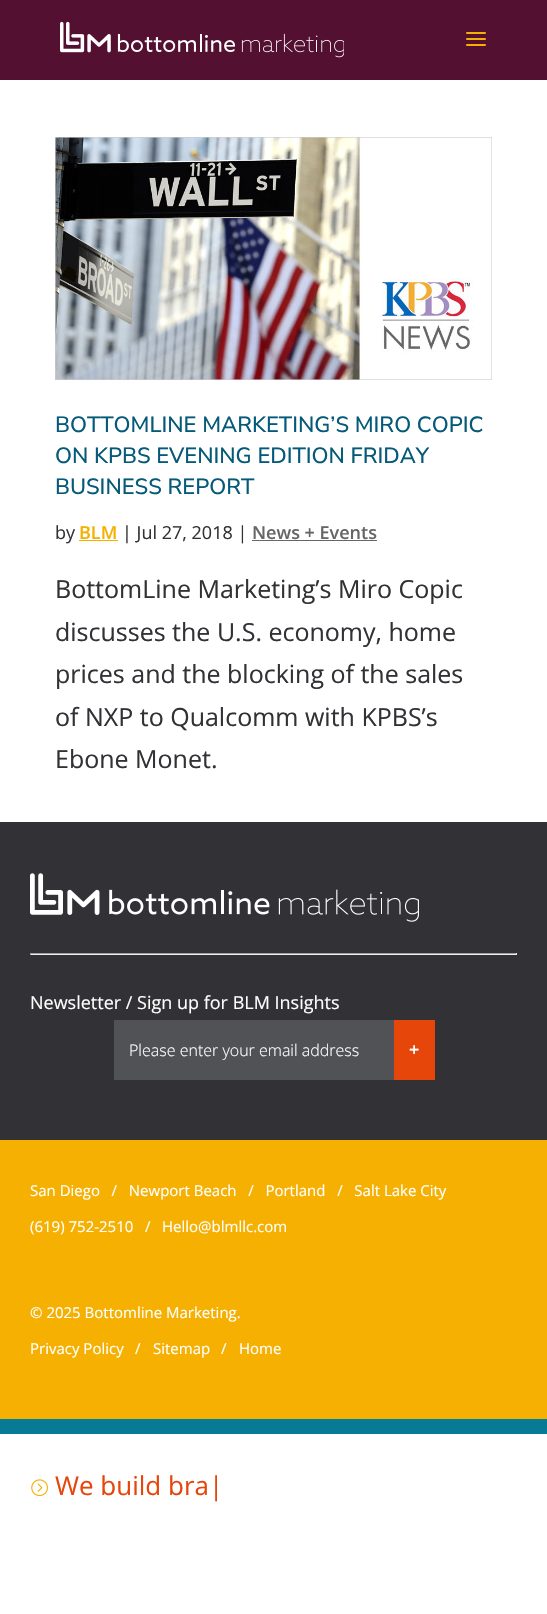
void draw(SkCanvas* canvas) {
    SkPaint paint;
    paint.setAntiAlias(true);
    auto face = [&](const char* family, int weight, float size, bool italic = false) {
        SkFontStyle style(weight, SkFontStyle::kNormal_Width,
            italic ? SkFontStyle::kItalic_Slant : SkFontStyle::kUpright_Slant);
        SkFont result(fontMgr->matchFamilyStyle(family, style), size);
        result.setSubpixel(true);
        return result;
    };
    auto write = [&](const char* s, float x, float y, const SkFont& font, SkColor color) {
        SkPaint ink(SkColor4f::FromColor(color));
        ink.setAntiAlias(true);
        canvas->drawString(s, x, y, font, ink);
    };
    auto block = [&](float x, float y, float w, float h, SkColor color) {
        SkPaint ink(SkColor4f::FromColor(color));
        ink.setAntiAlias(true);
        canvas->drawRect(SkRect::MakeXYWH(x, y, w, h), ink);
    };
    auto paste = [&](const char* path, float x, float y, float w, float h) {
        auto image = SkImages::DeferredFromEncodedData(SkData::MakeFromFileName(path));
        canvas->drawImageRect(image, SkRect::MakeXYWH(x, y, w, h), SkSamplingOptions());
    };
    canvas->clear(SK_ColorWHITE);
    block(0, 0, 547, 80, SkColorSetRGB(84, 16, 49));
    paste("pic1.png", 60, 21, 284, 37);
    paste("pic2.png", 466, 32, 20, 14);
    paste("pic3.png", 55, 137, 437, 243);
    auto kFont1 = face("Nunito Sans", 500, 22);
    write("BOTTOMLINE MARKETING’S MIRO COPIC", 55, 432, kFont1, SkColorSetRGB(5, 90, 121));
    write("ON KPBS EVENING EDITION FRIDAY", 55, 463, kFont1, SkColorSetRGB(5, 90, 121));
    write("BUSINESS REPORT", 55, 494, kFont1, SkColorSetRGB(5, 90, 121));
    auto kFont2 = face("Open Sans", 400, 18);
    write("by", 55, 539, kFont2, SkColorSetRGB(50, 49, 53));
    auto kFont3 = face("Open Sans", 600, 18);
    write("BLM", 79, 539, kFont3, SkColorSetRGB(245, 176, 2));
    block(79, 540, 39, 1, SkColorSetRGB(245, 176, 2));
    write("| Jul 27, 2018 |", 122, 539, kFont2, SkColorSetRGB(50, 49, 53));
    write("News + Events", 252, 539, kFont3, SkColorSetRGB(102, 102, 102));
    block(252, 540, 125, 1, SkColorSetRGB(102, 102, 102));
    auto kFont4 = face("Open Sans", 400, 25);
    write("BottomLine Marketing’s Miro Copic", 55, 598, kFont4, SkColorSetRGB(50, 49, 53));
    write("discusses the U.S. economy, home", 55, 641, kFont4, SkColorSetRGB(50, 49, 53));
    write("prices and the blocking of the sales", 55, 683, kFont4, SkColorSetRGB(50, 49, 53));
    write("of NXP to Qualcomm with KPBS’s", 55, 726, kFont4, SkColorSetRGB(50, 49, 53));
    write("Ebone Monet.", 55, 768, kFont4, SkColorSetRGB(50, 49, 53));
    block(0, 822, 547, 318, SkColorSetRGB(50, 49, 53));
    paste("pic4.png", 30, 873, 389, 49);
    block(30, 953, 487, 1, SkColorSetRGB(159, 159, 159));
    block(516, 953, 1, 2, SkColorSetRGB(238, 238, 238));
    block(30, 954, 487, 1, SkColorSetRGB(238, 238, 238));
    block(30, 953, 1, 2, SkColorSetRGB(159, 159, 159));
    write("Newsletter / Sign up for BLM Insights", 30, 1009, kFont2, SK_ColorWHITE);
    block(114, 1020, 280, 60, SkColorSetRGB(81, 82, 85));
    auto kFont5 = face("Open Sans", 300, 16);
    write("Please enter your email address", 129, 1056, kFont5, SK_ColorWHITE);
    block(394, 1020, 41, 60, SkColorSetRGB(230, 70, 10));
    write("+", 409, 1056, kFont3, SK_ColorWHITE);
    block(0, 1140, 547, 279, SkColorSetRGB(245, 176, 2));
    auto kFont6 = face("Open Sans", 400, 15);
    write("San Diego   /   Newport Beach   /   Portland   /   Salt Lake City", 30, 1196, kFont6, SK_ColorWHITE);
    write("(619) 752-2510   /", 30, 1232, kFont6, SK_ColorWHITE);
    write("Hello@blmllc.com", 162, 1232, kFont6, SK_ColorWHITE);
    write("© 2025 Bottomline Marketing.", 30, 1318, kFont6, SK_ColorWHITE);
    write("Privacy Policy", 30, 1354, kFont6, SK_ColorWHITE);
    write("/", 135, 1354, kFont6, SK_ColorWHITE);
    write("Sitemap", 153, 1354, kFont6, SK_ColorWHITE);
    write("/", 221, 1354, kFont6, SK_ColorWHITE);
    write("Home", 239, 1354, kFont6, SK_ColorWHITE);
    block(0, 1419, 547, 15, SkColorSetRGB(7, 122, 150));
    paste("pic5.png", 31, 1479, 17, 18);
    auto kFont7 = face("Open Sans", 400, 26);
    write("We build bra|", 55, 1495, kFont7, SkColorSetRGB(230, 70, 10));
}
